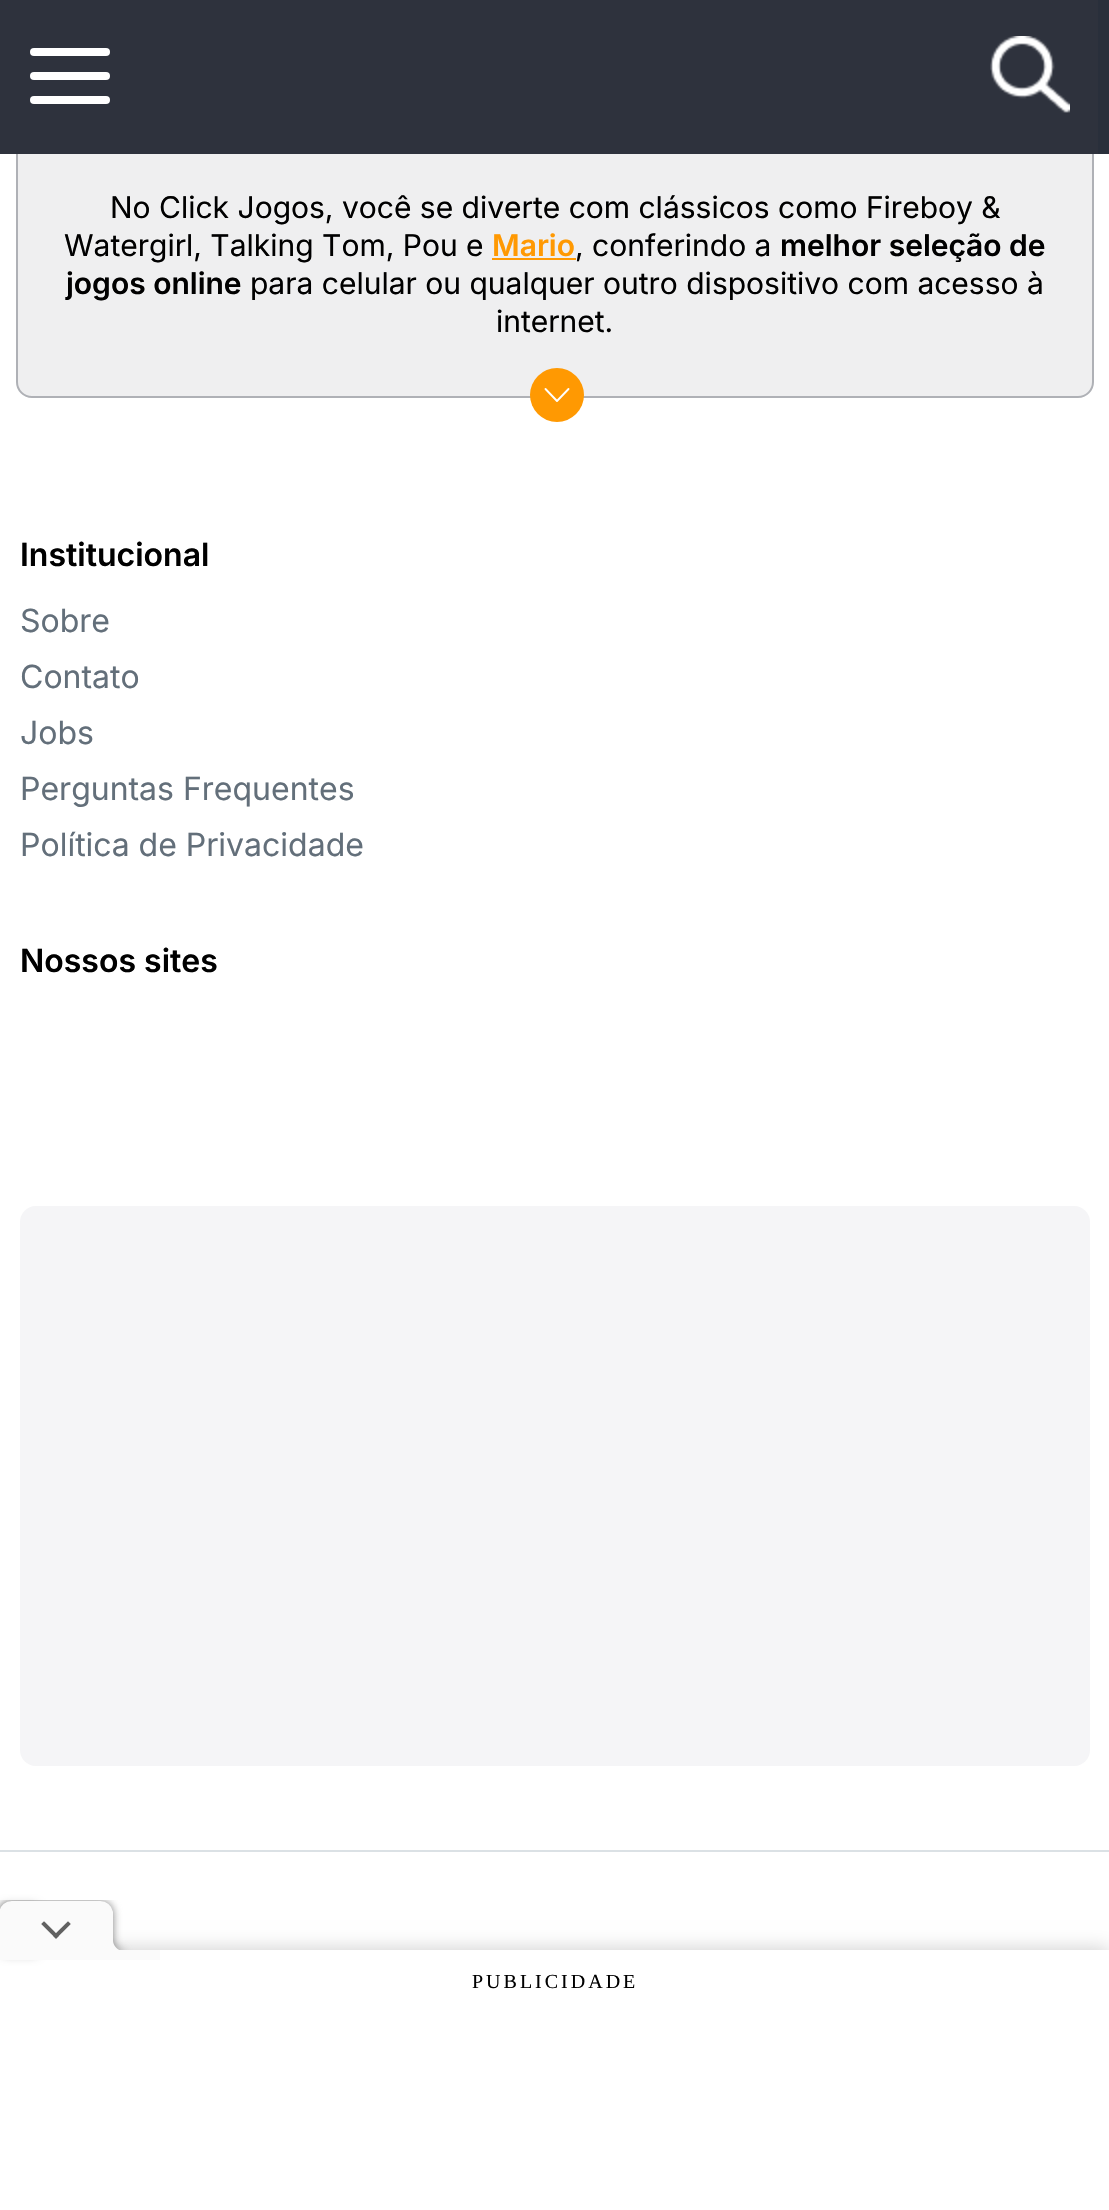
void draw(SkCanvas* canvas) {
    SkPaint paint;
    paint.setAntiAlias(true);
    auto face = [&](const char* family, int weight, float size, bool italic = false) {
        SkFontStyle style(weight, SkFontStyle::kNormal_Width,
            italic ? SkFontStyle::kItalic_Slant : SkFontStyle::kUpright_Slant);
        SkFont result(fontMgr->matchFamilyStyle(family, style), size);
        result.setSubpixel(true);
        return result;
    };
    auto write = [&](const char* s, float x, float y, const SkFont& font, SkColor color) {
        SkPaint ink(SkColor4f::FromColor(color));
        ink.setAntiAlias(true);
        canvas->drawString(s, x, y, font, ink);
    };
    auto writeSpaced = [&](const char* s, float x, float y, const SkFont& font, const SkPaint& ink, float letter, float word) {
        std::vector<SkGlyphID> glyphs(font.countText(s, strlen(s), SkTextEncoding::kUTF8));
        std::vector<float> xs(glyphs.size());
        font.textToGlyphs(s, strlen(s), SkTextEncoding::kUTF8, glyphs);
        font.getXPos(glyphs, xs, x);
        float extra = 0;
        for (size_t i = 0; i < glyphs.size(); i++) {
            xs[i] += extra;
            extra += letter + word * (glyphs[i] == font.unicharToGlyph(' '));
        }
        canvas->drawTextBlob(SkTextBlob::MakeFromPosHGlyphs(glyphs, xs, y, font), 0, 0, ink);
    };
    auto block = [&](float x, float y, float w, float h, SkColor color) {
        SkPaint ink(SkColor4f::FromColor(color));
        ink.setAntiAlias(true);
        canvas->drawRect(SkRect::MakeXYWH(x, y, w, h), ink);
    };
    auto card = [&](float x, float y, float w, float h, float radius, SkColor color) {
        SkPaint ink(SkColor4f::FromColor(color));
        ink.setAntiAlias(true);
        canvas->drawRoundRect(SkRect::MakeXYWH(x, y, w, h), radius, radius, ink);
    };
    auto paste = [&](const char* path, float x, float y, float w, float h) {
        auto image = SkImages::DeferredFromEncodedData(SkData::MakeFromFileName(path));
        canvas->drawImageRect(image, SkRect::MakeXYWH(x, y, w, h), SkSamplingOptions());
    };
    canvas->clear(SK_ColorWHITE);
    paint.setColor(SkColorSetRGB(239, 239, 240));
    canvas->drawRoundRect(SkRect::MakeXYWH(17, 73, 1076, 324), 15, 15, paint);
    paint.setStyle(SkPaint::kStroke_Style);
    paint.setStrokeWidth(2);
    paint.setColor(SkColorSetRGB(175, 177, 182));
    canvas->drawRoundRect(SkRect::MakeXYWH(17, 73, 1076, 324), 15, 15, paint);
    block(0, 0, 1098, 154, SkColorSetRGB(46, 50, 61));
    card(30, 48, 80, 8, 4, SK_ColorWHITE);
    card(30, 72, 80, 8, 4, SK_ColorWHITE);
    card(30, 96, 80, 8, 4, SK_ColorWHITE);
    paste("pic1.png", 990, 36, 80, 77);
    block(1098, 0, 11, 154, SkColorSetRGB(41, 47, 59));
    auto kFont1 = face("Inter", 400, 30);
    write("No Click Jogos, você se diverte com clássicos como Fireboy &", 110, 218, kFont1, SK_ColorBLACK);
    write("Watergirl, Talking Tom, Pou e", 64, 256, kFont1, SK_ColorBLACK);
    auto kFont2 = face("Inter", 600, 30);
    write("Mario", 492, 256, kFont2, SkColorSetRGB(255, 153, 2));
    block(492, 258, 84, 2, SkColorSetRGB(255, 153, 2));
    write(", conferindo a", 575, 256, kFont1, SK_ColorBLACK);
    write("melhor seleção de", 780, 256, kFont2, SK_ColorBLACK);
    write("jogos online", 66, 294, kFont2, SK_ColorBLACK);
    write("para celular ou qualquer outro dispositivo com acesso à", 250, 294, kFont1, SK_ColorBLACK);
    write("internet.", 496, 332, kFont1, SK_ColorBLACK);
    paint.setStyle(SkPaint::kFill_Style);
    paint.setColor(SkColorSetRGB(255, 153, 2));
    canvas->drawCircle(557, 395, 27, paint);
    paint.setStyle(SkPaint::kStroke_Style);
    paint.setStrokeWidth(1.9f);
    paint.setStrokeCap(SkPaint::kRound_Cap);
    paint.setStrokeJoin(SkPaint::kRound_Join);
    paint.setColor(SK_ColorWHITE);
    canvas->drawPath(SkPathBuilder().moveTo(545.5f, 389).lineTo(557, 401).lineTo(568.5f, 389).detach(), paint);
    auto kFont3 = face("Inter", 600, 32);
    write("Institucional", 20, 566, kFont3, SK_ColorBLACK);
    auto kFont4 = face("Inter", 400, 32);
    write("Sobre", 20, 632, kFont4, SkColorSetRGB(99, 111, 122));
    write("Contato", 20, 688, kFont4, SkColorSetRGB(99, 111, 122));
    write("Jobs", 20, 744, kFont4, SkColorSetRGB(99, 111, 122));
    write("Perguntas Frequentes", 20, 800, kFont4, SkColorSetRGB(99, 111, 122));
    write("Política de Privacidade", 20, 856, kFont4, SkColorSetRGB(99, 111, 122));
    write("Nossos sites", 20, 972, kFont3, SK_ColorBLACK);
    card(20, 1206, 1070, 560, 16, SkColorSetRGB(245, 245, 247));
    block(0, 1850, 1109, 2, SkColorSetRGB(219, 225, 229));
    paint.setStyle(SkPaint::kFill_Style);
    paint.setColor(SkColorSetARGB(51, 0, 0, 0));
    paint.setMaskFilter(SkMaskFilter::MakeBlur(kNormal_SkBlurStyle, 10));
    canvas->drawRect(SkRect::MakeXYWH(0, 1950, 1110, 260), paint);
    paint.setMaskFilter(nullptr);
    block(0, 1950, 1109, 260, SK_ColorWHITE);
    paint.setColor(SkColorSetARGB(69, 0, 0, 0));
    paint.setMaskFilter(SkMaskFilter::MakeBlur(kNormal_SkBlurStyle, 4));
    canvas->drawRoundRect(SkRect::MakeXYWH(0, 1904, 40, 52), 8, 8, paint);
    paint.setMaskFilter(nullptr);
    paste("pic2.png", 0, 1900, 160, 60);
    auto kFont5 = face("Liberation Serif", 400, 20);
    paint.setColor(SK_ColorBLACK);
    writeSpaced("PUBLICIDADE", 472, 1988, kFont5, paint, 3, 0);
}
